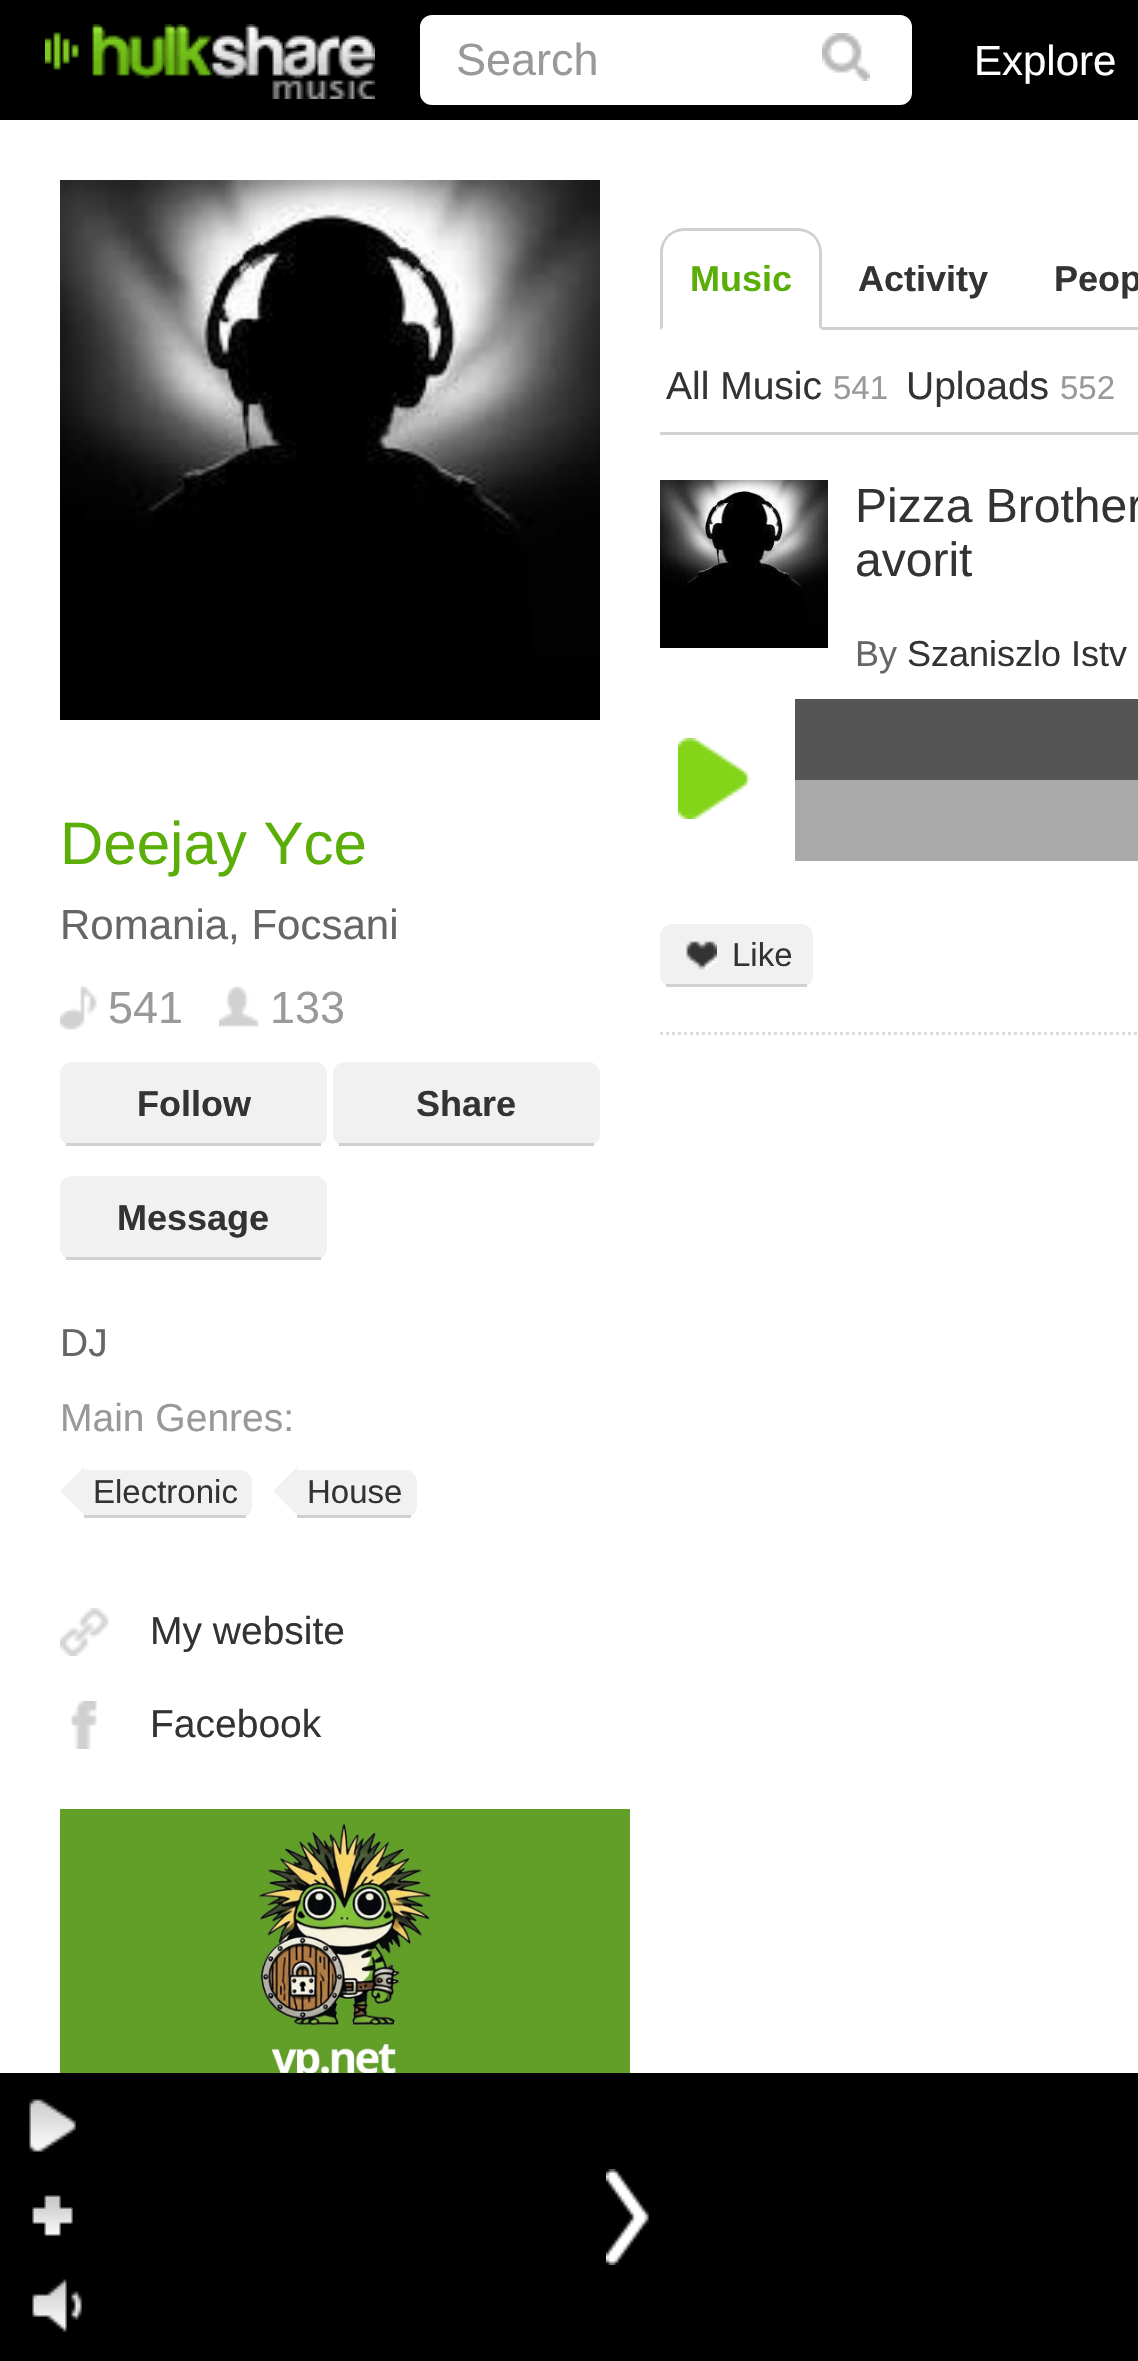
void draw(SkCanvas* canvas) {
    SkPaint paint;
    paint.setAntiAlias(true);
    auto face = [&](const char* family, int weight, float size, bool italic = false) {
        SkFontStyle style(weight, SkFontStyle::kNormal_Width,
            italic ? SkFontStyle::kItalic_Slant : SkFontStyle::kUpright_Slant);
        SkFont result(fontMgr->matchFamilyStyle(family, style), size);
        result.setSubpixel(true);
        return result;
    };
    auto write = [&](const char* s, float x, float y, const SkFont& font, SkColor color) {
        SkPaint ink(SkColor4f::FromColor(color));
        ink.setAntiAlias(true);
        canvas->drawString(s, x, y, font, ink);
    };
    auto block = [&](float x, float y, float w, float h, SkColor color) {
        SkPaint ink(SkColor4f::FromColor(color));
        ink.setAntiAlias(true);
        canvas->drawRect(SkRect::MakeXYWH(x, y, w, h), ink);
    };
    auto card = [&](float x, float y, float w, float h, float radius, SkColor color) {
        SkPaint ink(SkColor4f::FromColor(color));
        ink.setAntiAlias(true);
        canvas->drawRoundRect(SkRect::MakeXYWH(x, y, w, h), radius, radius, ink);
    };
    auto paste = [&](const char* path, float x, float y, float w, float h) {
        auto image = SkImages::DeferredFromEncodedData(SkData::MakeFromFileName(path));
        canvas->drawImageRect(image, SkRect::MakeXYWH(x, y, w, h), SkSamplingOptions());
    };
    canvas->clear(SK_ColorWHITE);
    block(0, 0, 1138, 120, SK_ColorBLACK);
    paste("pic1.png", 45, 24, 330, 75);
    paint.setColor(SK_ColorWHITE);
    canvas->drawRoundRect(SkRect::MakeXYWH(423, 18, 486, 84), 9, 9, paint);
    paint.setStyle(SkPaint::kStroke_Style);
    paint.setStrokeWidth(6);
    canvas->drawRoundRect(SkRect::MakeXYWH(423, 18, 486, 84), 9, 9, paint);
    auto kFont1 = face("Liberation Sans", 400, 45);
    write("Search", 456, 75, kFont1, SkColorSetRGB(153, 153, 153));
    paste("pic2.png", 822, 33, 48, 48);
    auto kFont2 = face("Liberation Sans", 400, 42);
    write("Explore", 974, 75, kFont2, SK_ColorWHITE);
    block(660, 327, 478, 3, SkColorSetRGB(208, 208, 208));
    paint.setStyle(SkPaint::kFill_Style);
    paint.setColor(SkColorSetRGB(208, 208, 208));
    canvas->drawPath(SkPathBuilder().moveTo(684, 228).cubicTo(678, 228, 672, 231, 667, 235).lineTo(669, 237).cubicTo(673, 233, 678, 231, 684, 231).lineTo(798, 231).cubicTo(804, 231, 809, 233, 813, 237).lineTo(815, 235).cubicTo(810, 231, 804, 228, 798, 228).close().detach(), paint);
    canvas->drawPath(SkPathBuilder().moveTo(822, 330).lineTo(822, 252).cubicTo(822, 246, 819, 240, 815, 235).lineTo(813, 237).cubicTo(817, 241, 819, 246, 819, 252).lineTo(819, 327).close().detach(), paint);
    paint.setColor(SK_ColorWHITE);
    canvas->drawPath(SkPathBuilder().moveTo(822, 330).lineTo(819, 327).lineTo(663, 327).lineTo(660, 330).close().detach(), paint);
    paint.setColor(SkColorSetRGB(208, 208, 208));
    canvas->drawPath(SkPathBuilder().moveTo(660, 330).lineTo(663, 327).lineTo(663, 252).cubicTo(663, 246, 665, 241, 669, 237).lineTo(667, 235).cubicTo(663, 240, 660, 246, 660, 252).close().detach(), paint);
    auto kFont3 = face("Liberation Sans", 700, 36);
    write("Music", 690, 291, kFont3, SkColorSetRGB(90, 174, 7));
    write("Activity", 858, 291, kFont3, SkColorSetRGB(51, 51, 51));
    write("Peop", 1054, 291, kFont3, SkColorSetRGB(51, 51, 51));
    block(660, 432, 478, 3, SkColorSetRGB(208, 208, 208));
    auto kFont4 = face("Liberation Sans", 400, 39);
    write("All Music", 666, 399, kFont4, SkColorSetRGB(51, 51, 51));
    auto kFont5 = face("Liberation Sans", 400, 33);
    write("541", 833, 399, kFont5, SkColorSetRGB(153, 153, 153));
    write("Uploads", 906, 399, kFont4, SkColorSetRGB(51, 51, 51));
    write("552", 1060, 399, kFont5, SkColorSetRGB(153, 153, 153));
    paint.setStyle(SkPaint::kStroke_Style);
    paint.setStrokeWidth(3);
    paint.setColor(SkColorSetRGB(220, 220, 220));
    paint.setPathEffect(SkDashPathEffect::Make({{3, 3}}, 0));
    canvas->drawPath(SkPathBuilder().moveTo(660, 1033.5f).lineTo(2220, 1033.5f).detach(), paint);
    paint.setPathEffect(nullptr);
    paste("pic3.png", 660, 480, 168, 168);
    auto kFont6 = face("Liberation Sans", 400, 48);
    write("Pizza Brother", 855, 522, kFont6, SkColorSetRGB(51, 51, 51));
    write("avorit", 855, 576, kFont6, SkColorSetRGB(51, 51, 51));
    auto kFont7 = face("Liberation Sans", 400, 36);
    write("By", 855, 666, kFont7, SkColorSetRGB(102, 102, 102));
    write("Szaniszlo Istv", 907, 666, kFont7, SkColorSetRGB(51, 51, 51));
    paste("pic4.png", 678, 738, 72, 81);
    block(795, 699, 343, 81, SkColorSetRGB(85, 85, 85));
    block(795, 780, 343, 81, SkColorSetRGB(170, 170, 170));
    card(660, 924, 153, 63, 12, SkColorSetRGB(241, 241, 241));
    block(666, 984, 141, 3, SkColorSetRGB(208, 208, 208));
    paste("pic5.png", 686, 941, 31, 30);
    write("Like", 732, 966, kFont5, SkColorSetRGB(51, 51, 51));
    paste("pic6.png", 60, 180, 540, 540);
    paste("pic7.png", 397, 242, 46, 133);
    auto kFont8 = face("Liberation Sans", 400, 60);
    write("Deejay Yce", 60, 864, kFont8, SkColorSetRGB(90, 174, 7));
    write("Romania, Focsani", 60, 939, kFont2, SkColorSetRGB(102, 102, 102));
    paste("pic8.png", 60, 986, 37, 44);
    write("541", 108, 1023, kFont1, SkColorSetRGB(153, 153, 153));
    paste("pic9.png", 219, 986, 40, 41);
    write("133", 270, 1023, kFont1, SkColorSetRGB(153, 153, 153));
    card(60, 1062, 267, 84, 12, SkColorSetRGB(241, 241, 241));
    block(66, 1143, 255, 3, SkColorSetRGB(208, 208, 208));
    write("Follow", 137, 1116, kFont3, SkColorSetRGB(51, 51, 51));
    card(333, 1062, 267, 84, 12, SkColorSetRGB(241, 241, 241));
    block(339, 1143, 255, 3, SkColorSetRGB(208, 208, 208));
    write("Share", 416, 1116, kFont3, SkColorSetRGB(51, 51, 51));
    card(60, 1176, 267, 84, 12, SkColorSetRGB(241, 241, 241));
    block(66, 1257, 255, 3, SkColorSetRGB(208, 208, 208));
    write("Message", 117, 1230, kFont3, SkColorSetRGB(51, 51, 51));
    write("DJ", 60, 1356, kFont4, SkColorSetRGB(102, 102, 102));
    write("Main Genres:", 60, 1431, kFont4, SkColorSetRGB(153, 153, 153));
    paint.setStyle(SkPaint::kFill_Style);
    paint.setColor(SkColorSetRGB(241, 241, 241));
    canvas->drawPath(SkPathBuilder().moveTo(84, 1470).lineTo(240, 1470).cubicTo(246.5f, 1470, 252, 1475.5f, 252, 1482).lineTo(252, 1506).cubicTo(252, 1512.5f, 246.5f, 1518, 240, 1518).lineTo(84, 1518).close().detach(), paint);
    block(84, 1515, 162, 3, SkColorSetRGB(208, 208, 208));
    canvas->drawPath(SkPathBuilder().moveTo(84, 1467).lineTo(84, 1515).lineTo(60, 1491).close().detach(), paint);
    write("Electronic", 93, 1503, kFont5, SkColorSetRGB(51, 51, 51));
    canvas->drawPath(SkPathBuilder().moveTo(297, 1470).lineTo(405, 1470).cubicTo(411.5f, 1470, 417, 1475.5f, 417, 1482).lineTo(417, 1506).cubicTo(417, 1512.5f, 411.5f, 1518, 405, 1518).lineTo(297, 1518).close().detach(), paint);
    block(297, 1515, 114, 3, SkColorSetRGB(208, 208, 208));
    canvas->drawPath(SkPathBuilder().moveTo(297, 1467).lineTo(297, 1515).lineTo(273, 1491).close().detach(), paint);
    write("House", 307, 1503, kFont5, SkColorSetRGB(51, 51, 51));
    paste("pic10.png", 60, 1608, 49, 48);
    write("My website", 150, 1644, kFont4, SkColorSetRGB(51, 51, 51));
    paste("pic11.png", 71, 1701, 26, 48);
    write("Facebook", 150, 1737, kFont4, SkColorSetRGB(51, 51, 51));
    paste("pic12.png", 60, 1809, 570, 264);
    block(0, 2073, 1138, 288, SK_ColorBLACK);
    paste("pic13.png", 29, 2099, 47, 53);
    paste("pic14.png", 32, 2195, 41, 41);
    paste("pic15.png", 32, 2279, 50, 53);
    paste("pic16.png", 606, 2169, 43, 96);
}
